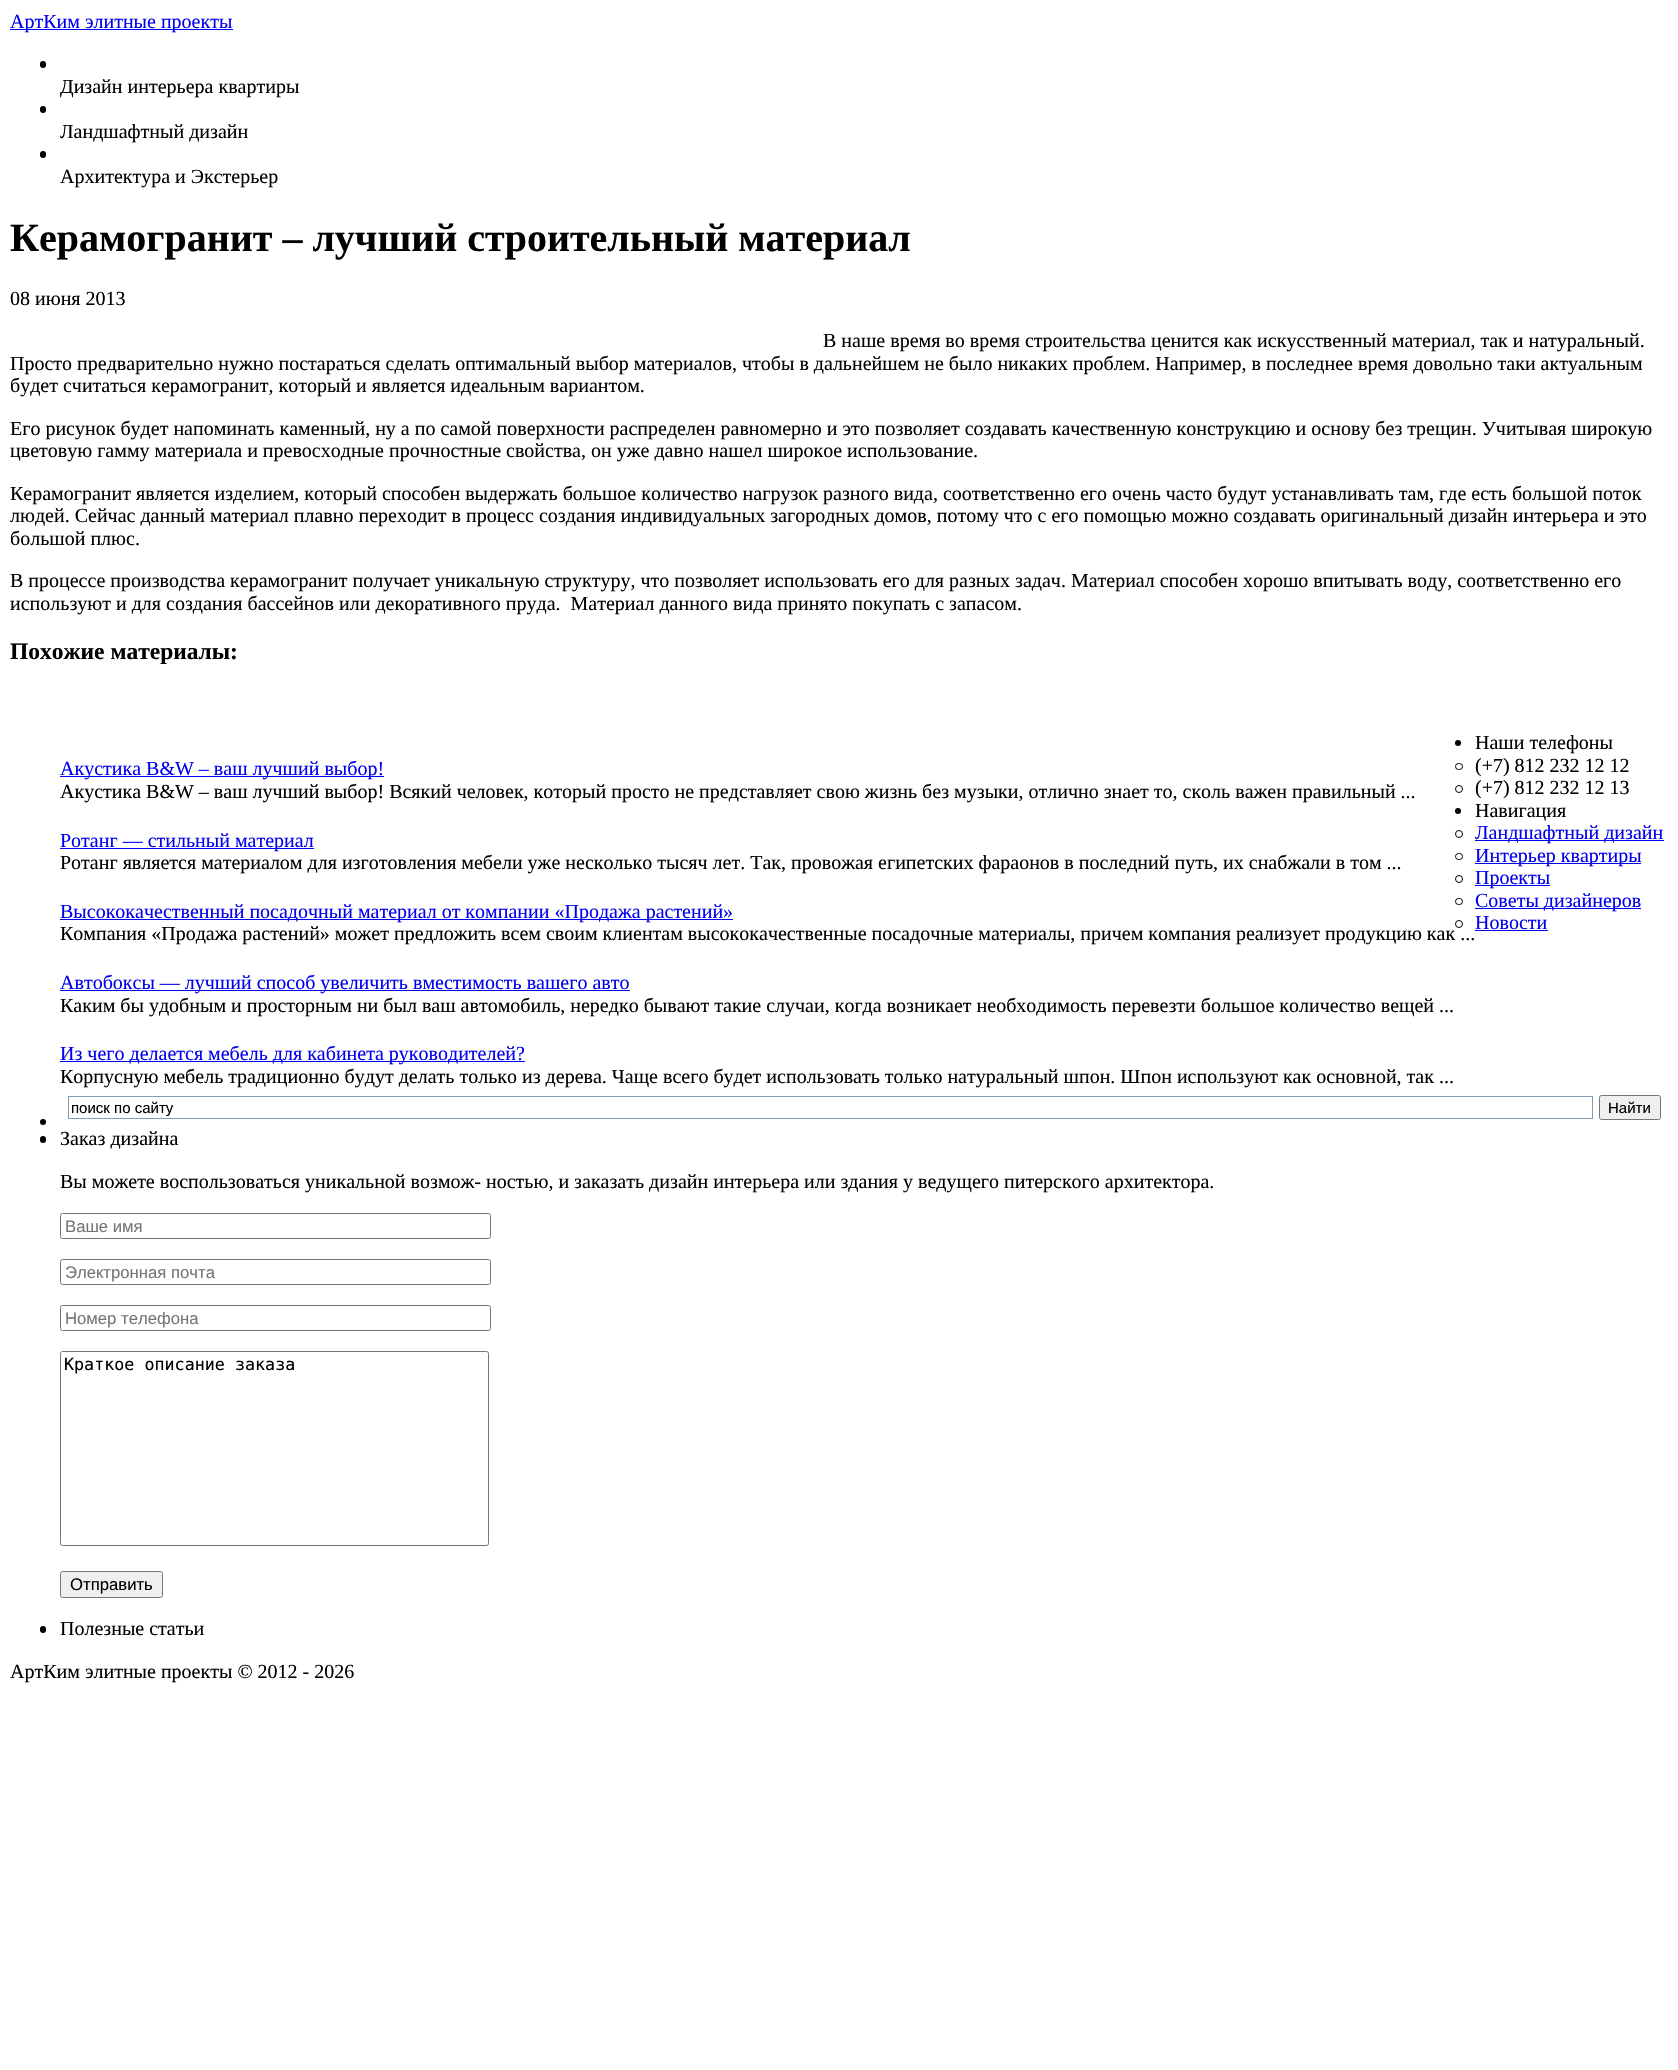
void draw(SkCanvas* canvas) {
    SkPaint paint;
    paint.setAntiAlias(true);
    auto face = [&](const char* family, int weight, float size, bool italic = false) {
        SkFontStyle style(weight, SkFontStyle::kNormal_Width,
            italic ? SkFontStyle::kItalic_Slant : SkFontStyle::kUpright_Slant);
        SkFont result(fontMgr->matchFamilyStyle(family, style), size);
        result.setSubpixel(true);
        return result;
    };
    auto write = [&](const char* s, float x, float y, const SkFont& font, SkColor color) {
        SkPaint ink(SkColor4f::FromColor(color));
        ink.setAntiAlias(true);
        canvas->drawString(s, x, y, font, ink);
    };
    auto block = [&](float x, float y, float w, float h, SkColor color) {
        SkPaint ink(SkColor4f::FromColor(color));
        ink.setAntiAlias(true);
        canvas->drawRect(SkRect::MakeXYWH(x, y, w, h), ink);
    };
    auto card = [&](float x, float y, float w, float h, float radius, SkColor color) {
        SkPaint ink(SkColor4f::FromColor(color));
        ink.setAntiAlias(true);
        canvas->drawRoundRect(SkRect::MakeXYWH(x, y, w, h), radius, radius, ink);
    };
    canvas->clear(SK_ColorWHITE);
    block(10, 29, 223, 1, SkColorSetRGB(0, 0, 238));
    auto kFont1 = face("Liberation Serif", 400, 20);
    write("АртКим элитные проекты", 10, 28, kFont1, SkColorSetRGB(0, 0, 238));
    card(40, 61, 6, 7, 3, SK_ColorBLACK);
    write("Дизайн интерьера квартиры", 60, 93, kFont1, SK_ColorBLACK);
    card(40, 106, 6, 7, 3, SK_ColorBLACK);
    write("Ландшафтный дизайн", 60, 138, kFont1, SK_ColorBLACK);
    card(40, 151, 6, 7, 3, SK_ColorBLACK);
    write("Архитектура и Экстерьер", 60, 183, kFont1, SK_ColorBLACK);
    auto kFont2 = face("Liberation Serif", 700, 40);
    write("Керамогранит – лучший строительный материал", 10, 251, kFont2, SK_ColorBLACK);
    write("08 июня 2013", 10, 305, kFont1, SK_ColorBLACK);
    write("В наше время во время строительства ценится как искусственный материал, так и натуральный.", 823, 347, kFont1, SK_ColorBLACK);
    write("Просто предварительно нужно постараться сделать оптимальный выбор материалов, чтобы в дальнейшем не было никаких проблем. Например, в последнее время довольно таки актуальным", 10, 370, kFont1, SK_ColorBLACK);
    write("будет считаться керамогранит, который и является идеальным вариантом.", 10, 392, kFont1, SK_ColorBLACK);
    write("Его рисунок будет напоминать каменный, ну а по самой поверхности распределен равномерно и это позволяет создавать качественную конструкцию и основу без трещин. Учитывая широкую", 10, 435, kFont1, SK_ColorBLACK);
    write("цветовую гамму материала и превосходные прочностные свойства, он уже давно нашел широкое использование.", 10, 457, kFont1, SK_ColorBLACK);
    write("Керамогранит является изделием, который способен выдержать большое количество нагрузок разного вида, соответственно его очень часто будут устанавливать там, где есть большой поток", 10, 500, kFont1, SK_ColorBLACK);
    write("людей. Сейчас данный материал плавно переходит в процесс создания индивидуальных загородных домов, потому что с его помощью можно создавать оригинальный дизайн интерьера и это", 10, 522, kFont1, SK_ColorBLACK);
    write("большой плюс.", 10, 545, kFont1, SK_ColorBLACK);
    write("В процессе производства керамогранит получает уникальную структуру, что позволяет использовать его для разных задач. Материал способен хорошо впитывать воду, соответственно его", 10, 587, kFont1, SK_ColorBLACK);
    write("используют и для создания бассейнов или декоративного пруда.  Материал данного вида принято покупать с запасом.", 10, 610, kFont1, SK_ColorBLACK);
    auto kFont3 = face("Liberation Serif", 700, 23.5f);
    write("Похожие материалы:", 10, 659, kFont3, SK_ColorBLACK);
    block(60, 776, 324, 1, SkColorSetRGB(0, 0, 238));
    write("Акустика B&W – ваш лучший выбор!", 60, 775, kFont1, SkColorSetRGB(0, 0, 238));
    write("Акустика B&W – ваш лучший выбор! Всякий человек, который просто не представляет свою жизнь без музыки, отлично знает то, сколь важен правильный ...", 60, 798, kFont1, SK_ColorBLACK);
    block(60, 848, 254, 1, SkColorSetRGB(0, 0, 238));
    write("Ротанг — стильный материал", 60, 847, kFont1, SkColorSetRGB(0, 0, 238));
    write("Ротанг является материалом для изготовления мебели уже несколько тысяч лет. Так, провожая египетских фараонов в последний путь, их снабжали в том ...", 60, 869, kFont1, SK_ColorBLACK);
    block(60, 919, 673, 1, SkColorSetRGB(0, 0, 238));
    write("Высококачественный посадочный материал от компании «Продажа растений»", 60, 918, kFont1, SkColorSetRGB(0, 0, 238));
    write("Компания «Продажа растений» может предложить всем своим клиентам высококачественные посадочные материалы, причем компания реализует продукцию как ...", 60, 940, kFont1, SK_ColorBLACK);
    block(60, 990, 570, 1, SkColorSetRGB(0, 0, 238));
    write("Автобоксы — лучший способ увеличить вместимость вашего авто", 60, 989, kFont1, SkColorSetRGB(0, 0, 238));
    write("Каким бы удобным и просторным ни был ваш автомобиль, нередко бывают такие случаи, когда возникает необходимость перевезти большое количество вещей ...", 60, 1012, kFont1, SK_ColorBLACK);
    block(60, 1061, 465, 1, SkColorSetRGB(0, 0, 238));
    write("Из чего делается мебель для кабинета руководителей?", 60, 1060, kFont1, SkColorSetRGB(0, 0, 238));
    write("Корпусную мебель традиционно будут делать только из дерева. Чаще всего будет использовать только натуральный шпон. Шпон используют как основной, так ...", 60, 1083, kFont1, SK_ColorBLACK);
    paint.setColor(SK_ColorBLACK);
    canvas->drawCircle(1458, 743, 3, paint);
    write("Наши телефоны", 1475, 749, kFont1, SK_ColorBLACK);
    paint.setStyle(SkPaint::kStroke_Style);
    paint.setStrokeWidth(1);
    canvas->drawRoundRect(SkRect::MakeXYWH(1455.5f, 763.5f, 7, 6), 3, 3, paint);
    write("(+7) 812 232 12 12", 1475, 772, kFont1, SK_ColorBLACK);
    canvas->drawCircle(1459, 789, 3.5f, paint);
    write("(+7) 812 232 12 13", 1475, 794, kFont1, SK_ColorBLACK);
    paint.setStyle(SkPaint::kFill_Style);
    canvas->drawCircle(1458, 811, 3, paint);
    write("Навигация", 1475, 817, kFont1, SK_ColorBLACK);
    paint.setStyle(SkPaint::kStroke_Style);
    canvas->drawCircle(1459, 834, 3.5f, paint);
    block(1475, 840, 189, 1, SkColorSetRGB(0, 0, 238));
    write("Ландшафтный дизайн", 1475, 839, kFont1, SkColorSetRGB(0, 0, 238));
    canvas->drawRoundRect(SkRect::MakeXYWH(1455.5f, 853.5f, 7, 6), 3, 3, paint);
    block(1475, 863, 166, 1, SkColorSetRGB(0, 0, 238));
    write("Интерьер квартиры", 1475, 862, kFont1, SkColorSetRGB(0, 0, 238));
    canvas->drawCircle(1459, 879, 3.5f, paint);
    block(1475, 885, 75, 1, SkColorSetRGB(0, 0, 238));
    write("Проекты", 1475, 884, kFont1, SkColorSetRGB(0, 0, 238));
    canvas->drawRoundRect(SkRect::MakeXYWH(1455.5f, 898.5f, 7, 6), 3, 3, paint);
    block(1475, 908, 166, 1, SkColorSetRGB(0, 0, 238));
    write("Советы дизайнеров", 1475, 907, kFont1, SkColorSetRGB(0, 0, 238));
    canvas->drawCircle(1459, 924, 3.5f, paint);
    write("Новости", 1475, 929, kFont1, SkColorSetRGB(0, 0, 238));
    block(1475, 930, 73, 1, SkColorSetRGB(0, 0, 238));
    paint.setColor(SkColorSetRGB(127, 157, 185));
    canvas->drawRect(SkRect::MakeXYWH(68.5f, 1096.5f, 1524, 22), paint);
    auto kFont4 = face("Liberation Sans", 400, 15);
    write("поиск по сайту", 71, 1113, kFont4, SK_ColorBLACK);
    paint.setStyle(SkPaint::kFill_Style);
    paint.setColor(SkColorSetRGB(239, 239, 239));
    canvas->drawRoundRect(SkRect::MakeXYWH(1599.5f, 1095.5f, 61, 24), 2, 2, paint);
    paint.setStyle(SkPaint::kStroke_Style);
    paint.setColor(SkColorSetRGB(118, 118, 118));
    canvas->drawRoundRect(SkRect::MakeXYWH(1599.5f, 1095.5f, 61, 24), 2, 2, paint);
    write("Найти", 1608, 1113, kFont4, SK_ColorBLACK);
    paint.setStyle(SkPaint::kFill_Style);
    paint.setColor(SK_ColorBLACK);
    canvas->drawCircle(43, 1122, 3, paint);
    card(40, 1136, 6, 7, 3, SK_ColorBLACK);
    write("Заказ дизайна", 60, 1145, kFont1, SK_ColorBLACK);
    write("Вы можете воспользоваться уникальной возмож- ностью, и заказать дизайн интерьера или здания у ведущего питерского архитектора.", 60, 1188, kFont1, SK_ColorBLACK);
    paint.setStyle(SkPaint::kStroke_Style);
    paint.setColor(SkColorSetRGB(118, 118, 118));
    canvas->drawRoundRect(SkRect::MakeXYWH(60.5f, 1213.5f, 430, 25), 2, 2, paint);
    auto kFont5 = face("Liberation Sans", 400, 16.7f);
    write("Ваше имя", 65, 1232, kFont5, SkColorSetRGB(117, 117, 117));
    canvas->drawRoundRect(SkRect::MakeXYWH(60.5f, 1259.5f, 430, 25), 2, 2, paint);
    write("Электронная почта", 65, 1278, kFont5, SkColorSetRGB(117, 117, 117));
    canvas->drawRoundRect(SkRect::MakeXYWH(60.5f, 1305.5f, 430, 25), 2, 2, paint);
    write("Номер телефона", 65, 1324, kFont5, SkColorSetRGB(117, 117, 117));
    canvas->drawRoundRect(SkRect::MakeXYWH(60.5f, 1351.5f, 428, 194), 2, 2, paint);
    auto kFont6 = face("DejaVu Sans Mono", 400, 16.7f);
    write("Краткое описание заказа", 64, 1370, kFont6, SK_ColorBLACK);
    paint.setStyle(SkPaint::kFill_Style);
    paint.setColor(SkColorSetRGB(239, 239, 239));
    canvas->drawRoundRect(SkRect::MakeXYWH(60.5f, 1571.5f, 102, 26), 2, 2, paint);
    paint.setStyle(SkPaint::kStroke_Style);
    paint.setColor(SkColorSetRGB(118, 118, 118));
    canvas->drawRoundRect(SkRect::MakeXYWH(60.5f, 1571.5f, 102, 26), 2, 2, paint);
    write("Отправить", 70, 1590, kFont5, SK_ColorBLACK);
    card(40, 1626, 6, 7, 3, SK_ColorBLACK);
    write("Полезные статьи", 60, 1635, kFont1, SK_ColorBLACK);
    write("АртКим элитные проекты © 2012 - 2026", 10, 1678, kFont1, SK_ColorBLACK);
}
